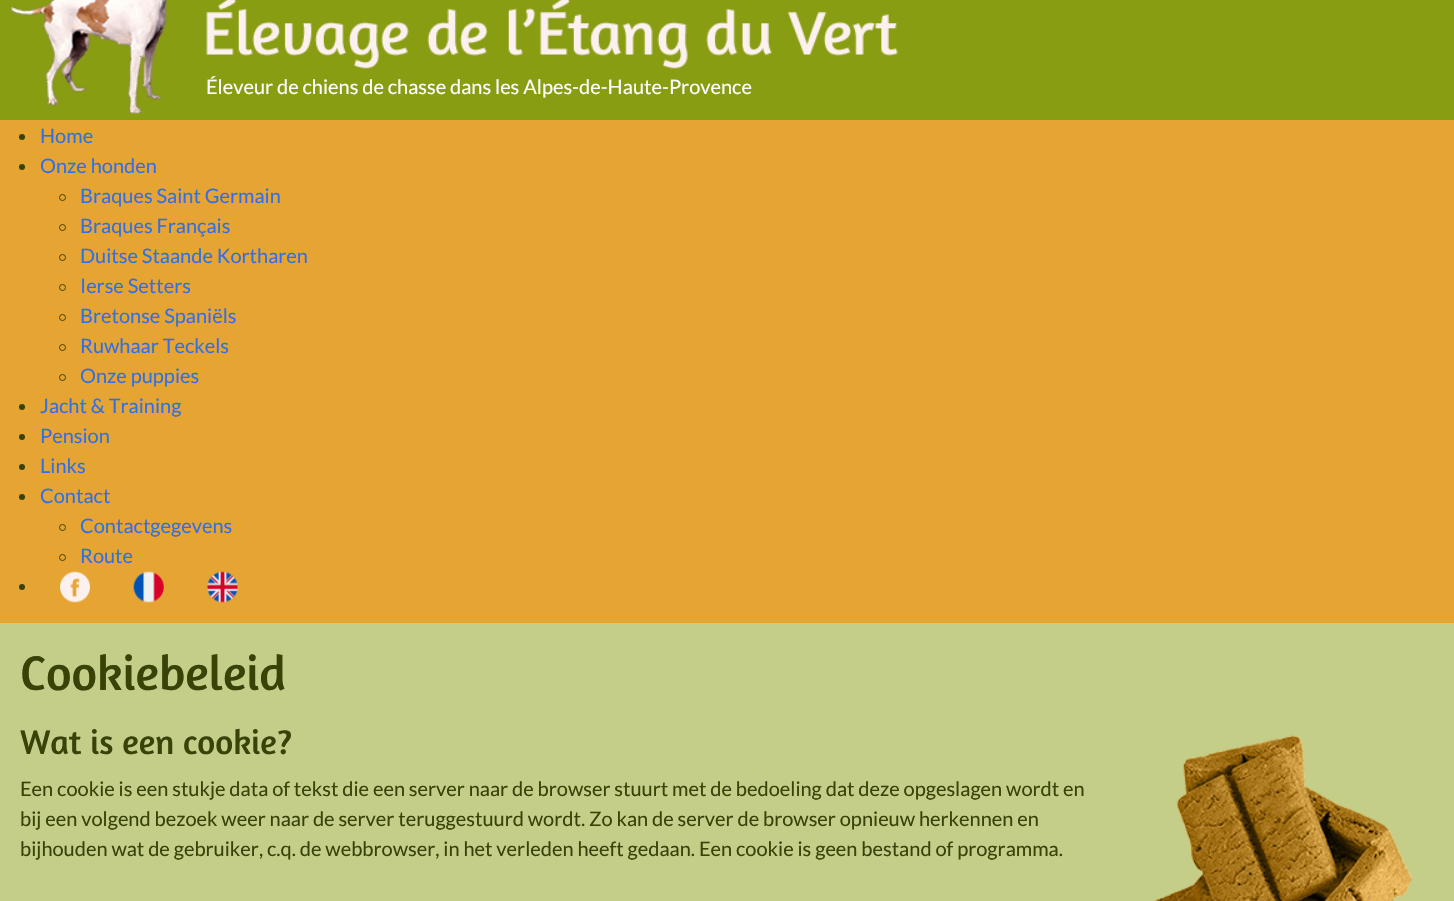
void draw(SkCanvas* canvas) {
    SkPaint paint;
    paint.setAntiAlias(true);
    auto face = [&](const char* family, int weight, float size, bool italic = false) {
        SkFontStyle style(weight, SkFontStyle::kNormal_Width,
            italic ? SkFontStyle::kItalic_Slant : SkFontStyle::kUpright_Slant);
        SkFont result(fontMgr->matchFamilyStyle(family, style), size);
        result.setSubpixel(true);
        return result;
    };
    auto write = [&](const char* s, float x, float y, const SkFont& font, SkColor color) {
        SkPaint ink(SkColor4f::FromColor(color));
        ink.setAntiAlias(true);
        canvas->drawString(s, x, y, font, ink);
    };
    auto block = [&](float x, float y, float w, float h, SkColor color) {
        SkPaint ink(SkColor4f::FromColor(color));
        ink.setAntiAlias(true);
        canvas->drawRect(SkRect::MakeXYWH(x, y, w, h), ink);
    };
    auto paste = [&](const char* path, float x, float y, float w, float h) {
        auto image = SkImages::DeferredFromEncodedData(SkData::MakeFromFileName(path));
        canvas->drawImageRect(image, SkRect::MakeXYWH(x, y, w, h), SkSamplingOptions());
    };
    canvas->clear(SkColorSetRGB(136, 157, 18));
    paste("pic1.png", 10, 0, 888, 114);
    auto kFont1 = face("Lato", 400, 20);
    write("Éleveur de chiens de chasse dans les Alpes-de-Haute-Provence", 206, 94, kFont1, SK_ColorWHITE);
    block(0, 120, 1454, 503, SkColorSetRGB(230, 164, 51));
    paint.setColor(SkColorSetRGB(57, 66, 7));
    canvas->drawCircle(22, 137, 3, paint);
    write("Home", 40, 143, kFont1, SkColorSetRGB(48, 112, 230));
    canvas->drawCircle(22, 167, 3, paint);
    write("Onze honden", 40, 173, kFont1, SkColorSetRGB(48, 112, 230));
    paint.setStyle(SkPaint::kStroke_Style);
    paint.setStrokeWidth(1);
    canvas->drawCircle(62.5f, 197.5f, 3, paint);
    write("Braques Saint Germain", 80, 203, kFont1, SkColorSetRGB(48, 112, 230));
    canvas->drawCircle(62.5f, 227.5f, 3, paint);
    write("Braques Français", 80, 233, kFont1, SkColorSetRGB(48, 112, 230));
    canvas->drawCircle(62.5f, 257.5f, 3, paint);
    write("Duitse Staande Kortharen", 80, 263, kFont1, SkColorSetRGB(48, 112, 230));
    canvas->drawCircle(62.5f, 287.5f, 3, paint);
    write("Ierse Setters", 80, 293, kFont1, SkColorSetRGB(48, 112, 230));
    canvas->drawCircle(62.5f, 317.5f, 3, paint);
    write("Bretonse Spaniëls", 80, 323, kFont1, SkColorSetRGB(48, 112, 230));
    canvas->drawCircle(62.5f, 347.5f, 3, paint);
    write("Ruwhaar Teckels", 80, 353, kFont1, SkColorSetRGB(48, 112, 230));
    canvas->drawCircle(62.5f, 377.5f, 3, paint);
    write("Onze puppies", 80, 383, kFont1, SkColorSetRGB(48, 112, 230));
    paint.setStyle(SkPaint::kFill_Style);
    canvas->drawCircle(22, 407, 3, paint);
    write("Jacht & Training", 40, 413, kFont1, SkColorSetRGB(48, 112, 230));
    canvas->drawCircle(22, 437, 3, paint);
    write("Pension", 40, 443, kFont1, SkColorSetRGB(48, 112, 230));
    canvas->drawCircle(22, 467, 3, paint);
    write("Links", 40, 473, kFont1, SkColorSetRGB(48, 112, 230));
    canvas->drawCircle(22, 497, 3, paint);
    write("Contact", 40, 503, kFont1, SkColorSetRGB(48, 112, 230));
    paint.setStyle(SkPaint::kStroke_Style);
    canvas->drawCircle(62.5f, 527.5f, 3, paint);
    write("Contactgegevens", 80, 533, kFont1, SkColorSetRGB(48, 112, 230));
    canvas->drawCircle(62.5f, 557.5f, 3, paint);
    write("Route", 80, 563, kFont1, SkColorSetRGB(48, 112, 230));
    paint.setStyle(SkPaint::kFill_Style);
    canvas->drawCircle(22, 587, 3, paint);
    paste("pic2.png", 60, 571, 30, 32);
    paste("pic3.png", 133, 571, 31, 32);
    paste("pic4.png", 207, 571, 31, 32);
    block(0, 623, 1454, 278, SkColorSetRGB(196, 206, 137));
    auto kFont2 = face("Amaranth", 400, 49.5f);
    write("Cookiebeleid", 20, 690, kFont2, SkColorSetRGB(57, 66, 7));
    auto kFont3 = face("Amaranth", 400, 34.75f);
    write("Wat is een cookie?", 20, 754, kFont3, SkColorSetRGB(57, 66, 7));
    paste("pic5.png", 1153, 735, 260, 166);
    write("Een cookie is een stukje data of tekst die een server naar de browser stuurt met de bedoeling dat deze opgeslagen wordt en", 20, 796, kFont1, SkColorSetRGB(57, 66, 7));
    write("bij een volgend bezoek weer naar de server teruggestuurd wordt. Zo kan de server de browser opnieuw herkennen en", 20, 826, kFont1, SkColorSetRGB(57, 66, 7));
    write("bijhouden wat de gebruiker, c.q. de webbrowser, in het verleden heeft gedaan. Een cookie is geen bestand of programma.", 20, 856, kFont1, SkColorSetRGB(57, 66, 7));
}
